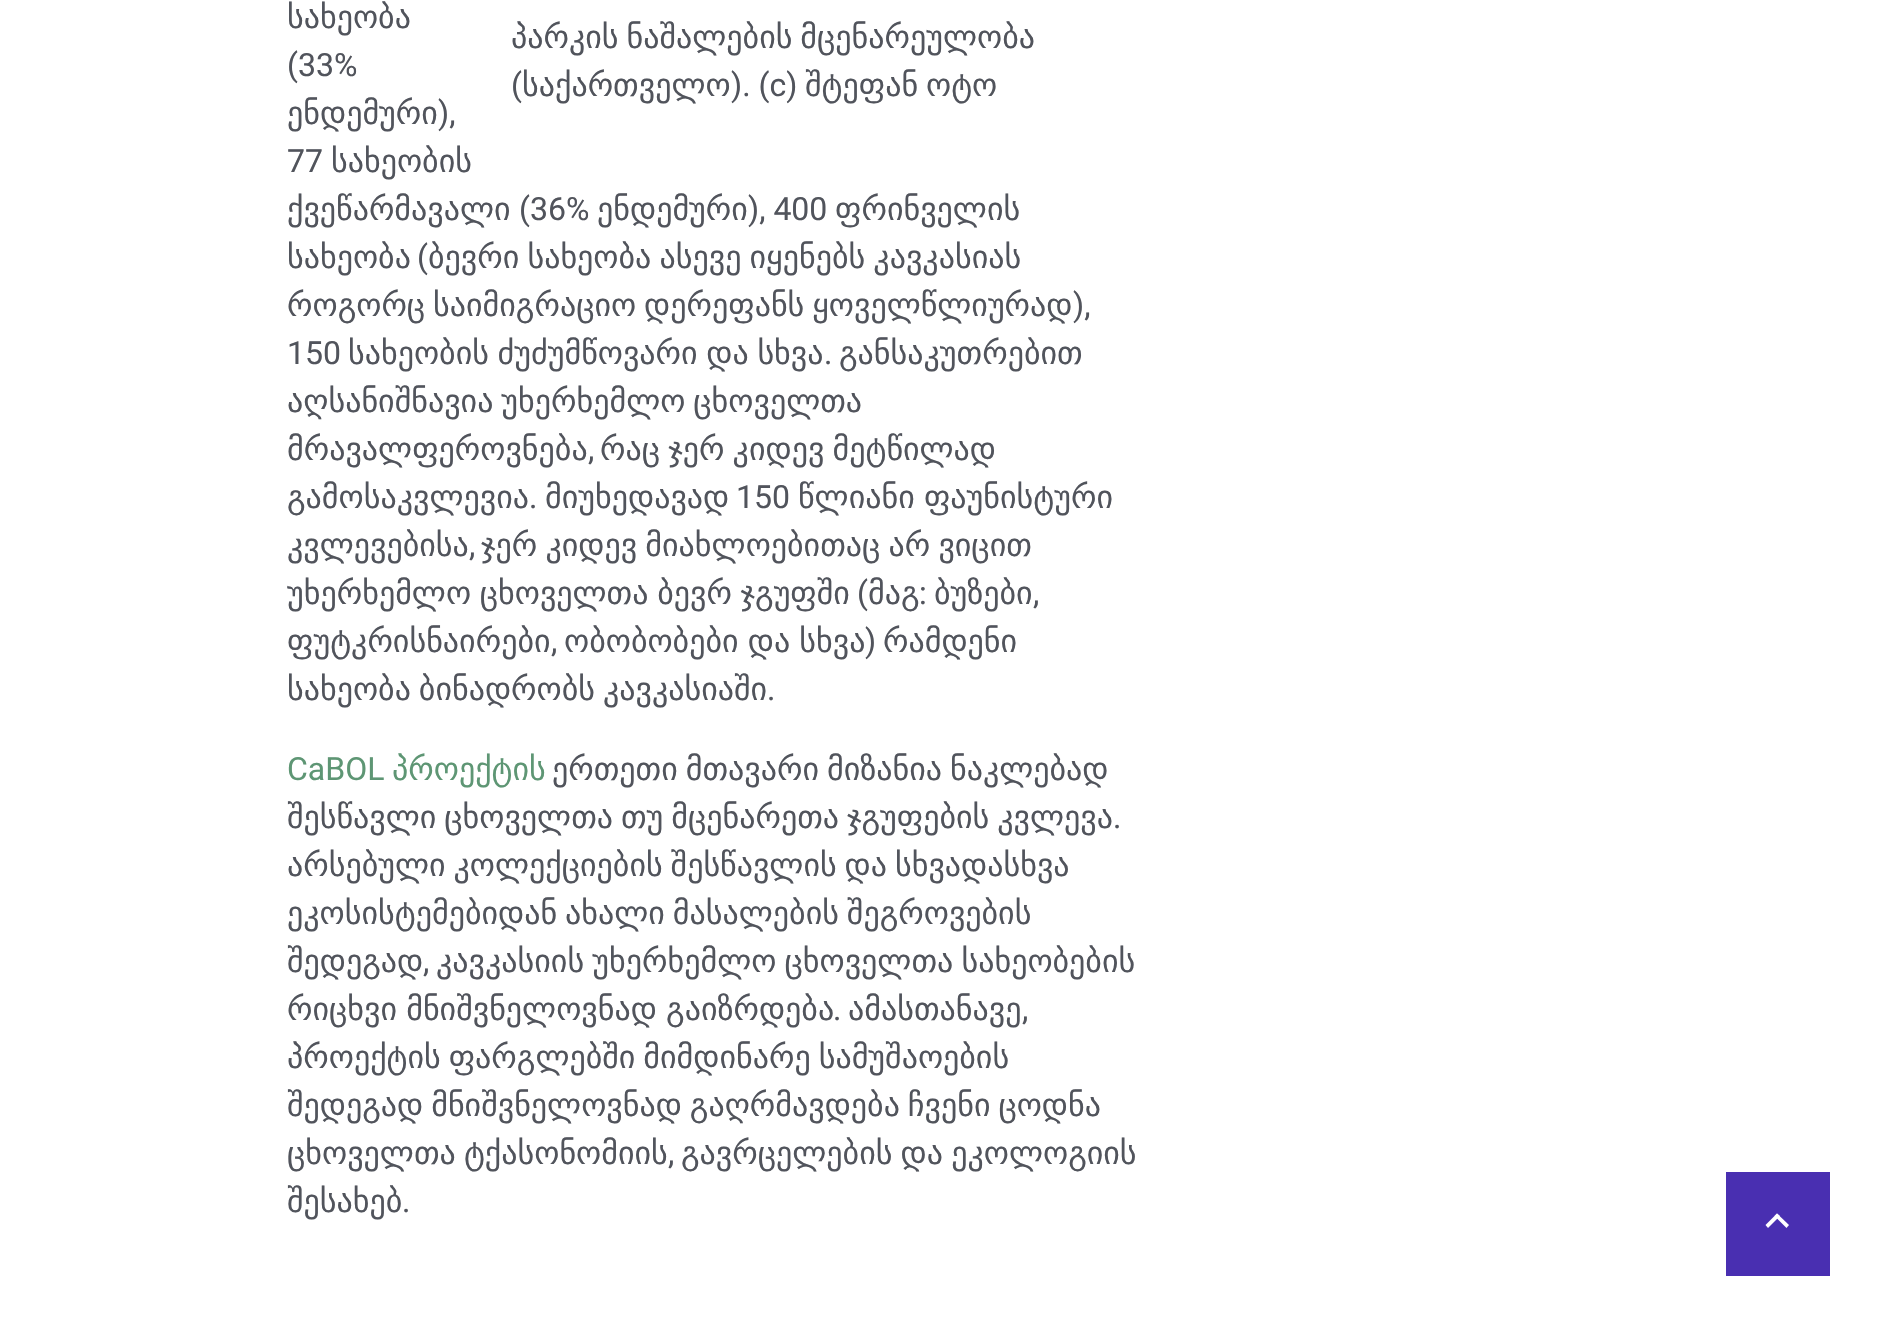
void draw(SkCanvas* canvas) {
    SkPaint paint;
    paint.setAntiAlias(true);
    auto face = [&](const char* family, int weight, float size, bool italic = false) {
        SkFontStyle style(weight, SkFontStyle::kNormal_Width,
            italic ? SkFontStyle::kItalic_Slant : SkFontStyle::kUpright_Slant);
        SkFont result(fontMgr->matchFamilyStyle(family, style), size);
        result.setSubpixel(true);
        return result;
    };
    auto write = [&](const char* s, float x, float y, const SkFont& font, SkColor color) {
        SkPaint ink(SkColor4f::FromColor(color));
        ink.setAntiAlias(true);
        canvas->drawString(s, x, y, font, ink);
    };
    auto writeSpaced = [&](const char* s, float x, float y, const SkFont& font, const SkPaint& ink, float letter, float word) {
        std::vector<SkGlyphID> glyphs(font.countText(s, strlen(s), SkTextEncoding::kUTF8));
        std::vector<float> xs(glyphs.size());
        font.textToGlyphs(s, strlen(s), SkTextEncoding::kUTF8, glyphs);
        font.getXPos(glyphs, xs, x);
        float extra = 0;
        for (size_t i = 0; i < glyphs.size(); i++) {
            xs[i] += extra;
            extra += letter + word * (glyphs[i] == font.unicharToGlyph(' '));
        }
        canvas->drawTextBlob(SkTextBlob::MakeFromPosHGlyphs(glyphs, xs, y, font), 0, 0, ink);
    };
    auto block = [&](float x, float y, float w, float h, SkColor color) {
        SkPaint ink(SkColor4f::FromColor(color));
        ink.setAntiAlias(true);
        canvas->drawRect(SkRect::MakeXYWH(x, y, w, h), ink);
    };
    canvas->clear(SK_ColorWHITE);
    auto kFont1 = face("DejaVu Sans", 400, 32);
    write("სახეობა", 287, 28, kFont1, SkColorSetRGB(81, 84, 92));
    auto kFont2 = face("Roboto", 400, 32);
    write("(33%", 287, 76, kFont2, SkColorSetRGB(81, 84, 92));
    write("ენდემური", 287, 124, kFont1, SkColorSetRGB(81, 84, 92));
    write("),", 438, 124, kFont2, SkColorSetRGB(81, 84, 92));
    write("77", 287, 172, kFont2, SkColorSetRGB(81, 84, 92));
    write("სახეობის", 331, 172, kFont1, SkColorSetRGB(81, 84, 92));
    write("ქვეწარმავალი", 287, 220, kFont1, SkColorSetRGB(81, 84, 92));
    write("(36%", 519, 220, kFont2, SkColorSetRGB(81, 84, 92));
    write("ენდემური", 597, 220, kFont1, SkColorSetRGB(81, 84, 92));
    write("), 400", 748, 220, kFont2, SkColorSetRGB(81, 84, 92));
    write("ფრინველის", 835, 220, kFont1, SkColorSetRGB(81, 84, 92));
    write("სახეობა", 287, 268, kFont1, SkColorSetRGB(81, 84, 92));
    write("(", 417, 268, kFont2, SkColorSetRGB(81, 84, 92));
    paint.setColor(SkColorSetRGB(81, 84, 92));
    writeSpaced("ბევრი სახეობა ასევე იყენებს კავკასიას", 428, 268, kFont1, paint, 0, -2);
    writeSpaced("როგორც საიმიგრაციო დერეფანს ყოველწლიურად", 287, 316, kFont1, paint, 0, -2.25f);
    write("),", 1073, 316, kFont2, SkColorSetRGB(81, 84, 92));
    write("150", 287, 364, kFont2, SkColorSetRGB(81, 84, 92));
    writeSpaced("სახეობის ძუძუმწოვარი და სხვა", 348, 364, kFont1, paint, 0, -1.5f);
    write(".", 824, 364, kFont2, SkColorSetRGB(81, 84, 92));
    write("განსაკუთრებით", 839, 364, kFont1, SkColorSetRGB(81, 84, 92));
    writeSpaced("აღსანიშნავია უხერხემლო ცხოველთა", 287, 412, kFont1, paint, 0, -2.25f);
    write("მრავალფეროვნება", 287, 460, kFont1, SkColorSetRGB(81, 84, 92));
    write(",", 588, 460, kFont2, SkColorSetRGB(81, 84, 92));
    writeSpaced("რაც ჯერ კიდევ მეტწილად", 600, 460, kFont1, paint, 0, -2);
    write("გამოსაკვლევია", 287, 508, kFont1, SkColorSetRGB(81, 84, 92));
    write(".", 529, 508, kFont2, SkColorSetRGB(81, 84, 92));
    write("მიუხედავად", 545, 508, kFont1, SkColorSetRGB(81, 84, 92));
    write("150", 736, 508, kFont2, SkColorSetRGB(81, 84, 92));
    writeSpaced("წლიანი ფაუნისტური", 798, 508, kFont1, paint, 0, -1);
    write("კვლევებისა", 287, 556, kFont1, SkColorSetRGB(81, 84, 92));
    write(",", 469, 556, kFont2, SkColorSetRGB(81, 84, 92));
    writeSpaced("ჯერ კიდევ მიახლოებითაც არ ვიცით", 481, 556, kFont1, paint, 0, -2);
    writeSpaced("უხერხემლო ცხოველთა ბევრ ჯგუფში", 287, 604, kFont1, paint, 0, -1.5f);
    write("(", 857, 604, kFont2, SkColorSetRGB(81, 84, 92));
    write("მაგ", 868, 604, kFont1, SkColorSetRGB(81, 84, 92));
    write(":", 919, 604, kFont2, SkColorSetRGB(81, 84, 92));
    write("ბუზები", 934, 604, kFont1, SkColorSetRGB(81, 84, 92));
    write(",", 1033, 604, kFont2, SkColorSetRGB(81, 84, 92));
    write("ფუტკრისნაირები", 287, 652, kFont1, SkColorSetRGB(81, 84, 92));
    write(",", 551, 652, kFont2, SkColorSetRGB(81, 84, 92));
    writeSpaced("ობობობები და სხვა", 564, 652, kFont1, paint, 0, -1);
    write(")", 865, 652, kFont2, SkColorSetRGB(81, 84, 92));
    write("რამდენი", 883, 652, kFont1, SkColorSetRGB(81, 84, 92));
    writeSpaced("სახეობა ბინადრობს კავკასიაში", 287, 700, kFont1, paint, 0, -2.25f);
    write(".", 767, 700, kFont2, SkColorSetRGB(81, 84, 92));
    writeSpaced("პარკის ნაშალების მცენარეულობა", 511, 48, kFont1, paint, 0, -2.25f);
    write("(", 511, 96, kFont2, SkColorSetRGB(81, 84, 92));
    write("საქართველო", 522, 96, kFont1, SkColorSetRGB(81, 84, 92));
    write("). (c)", 731, 96, kFont2, SkColorSetRGB(81, 84, 92));
    write("შტეფან", 805, 96, kFont1, SkColorSetRGB(81, 84, 92));
    write("ოტო", 926, 96, kFont1, SkColorSetRGB(81, 84, 92));
    write("CaBOL", 287, 780, kFont2, SkColorSetRGB(94, 150, 116));
    write("პროექტის", 392, 780, kFont1, SkColorSetRGB(94, 150, 116));
    writeSpaced("ერთეთი მთავარი მიზანია ნაკლებად", 552, 780, kFont1, paint, 0, -2.25f);
    writeSpaced("შესწავლი ცხოველთა თუ მცენარეთა ჯგუფების კვლევა", 287, 828, kFont1, paint, 0, -2.25f);
    write(".", 1113, 828, kFont2, SkColorSetRGB(81, 84, 92));
    writeSpaced("არსებული კოლექციების შესწავლის და სხვადასხვა", 287, 876, kFont1, paint, 0, -2.25f);
    writeSpaced("ეკოსისტემებიდან ახალი მასალების შეგროვების", 287, 924, kFont1, paint, 0, -2.25f);
    write("შედეგად", 287, 972, kFont1, SkColorSetRGB(81, 84, 92));
    write(",", 423, 972, kFont2, SkColorSetRGB(81, 84, 92));
    writeSpaced("კავკასიის უხერხემლო ცხოველთა სახეობების", 436, 972, kFont1, paint, 0, -2);
    writeSpaced("რიცხვი მნიშვნელოვნად გაიზრდება", 287, 1020, kFont1, paint, 0, -1);
    write(".", 833, 1020, kFont2, SkColorSetRGB(81, 84, 92));
    write("ამასთანავე", 848, 1020, kFont1, SkColorSetRGB(81, 84, 92));
    write(",", 1022, 1020, kFont2, SkColorSetRGB(81, 84, 92));
    writeSpaced("პროექტის ფარგლებში მიმდინარე სამუშაოების", 287, 1068, kFont1, paint, 0, -2.25f);
    writeSpaced("შედეგად მნიშვნელოვნად გაღრმავდება ჩვენი ცოდნა", 287, 1116, kFont1, paint, 0, -2.25f);
    writeSpaced("ცხოველთა ტქასონომიის", 287, 1164, kFont1, paint, 0, -2);
    write(",", 668, 1164, kFont2, SkColorSetRGB(81, 84, 92));
    writeSpaced("გავრცელების და ეკოლოგიის", 681, 1164, kFont1, paint, 0, -2);
    write("შესახებ", 287, 1212, kFont1, SkColorSetRGB(81, 84, 92));
    write(".", 402, 1212, kFont2, SkColorSetRGB(81, 84, 92));
    block(1726, 1172, 104, 104, SkColorSetRGB(73, 47, 177));
    paint.setColor(SK_ColorWHITE);
    canvas->drawPath(SkPathBuilder().moveTo(1765.5f, 1225).lineTo(1777, 1213.5f).lineTo(1780, 1216).lineTo(1768, 1228).close().detach(), paint);
    canvas->drawPath(SkPathBuilder().moveTo(1774.5f, 1216).lineTo(1777, 1213.5f).lineTo(1789, 1225).lineTo(1786.5f, 1228).close().detach(), paint);
}
